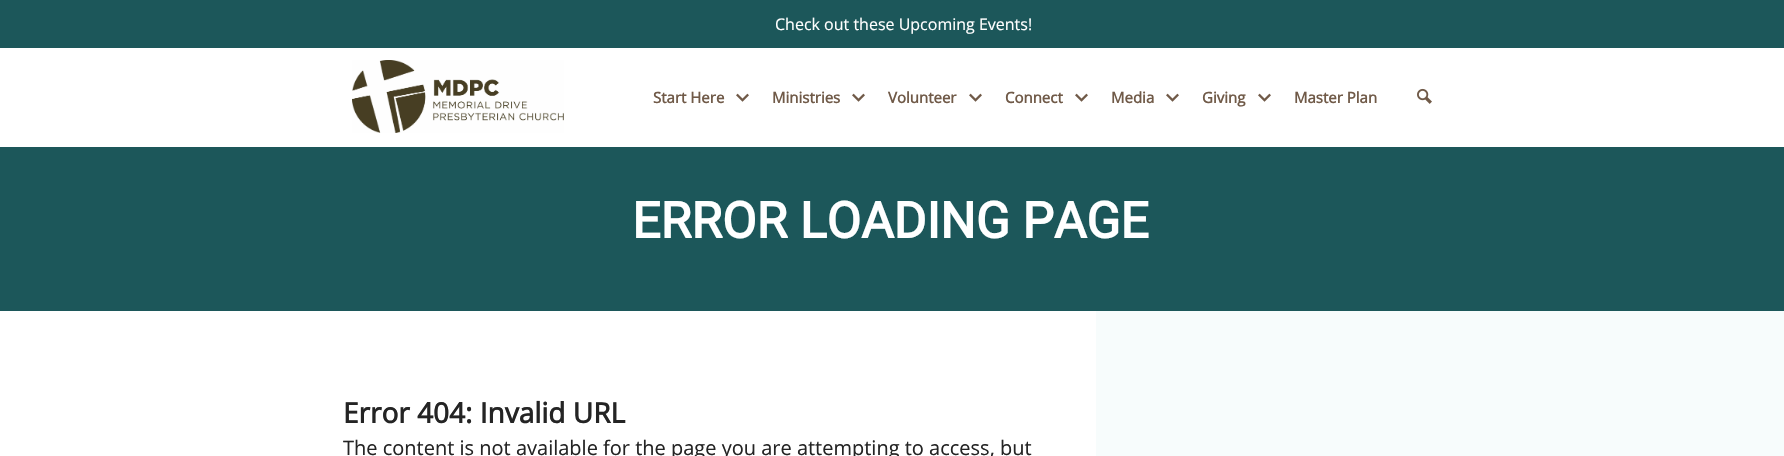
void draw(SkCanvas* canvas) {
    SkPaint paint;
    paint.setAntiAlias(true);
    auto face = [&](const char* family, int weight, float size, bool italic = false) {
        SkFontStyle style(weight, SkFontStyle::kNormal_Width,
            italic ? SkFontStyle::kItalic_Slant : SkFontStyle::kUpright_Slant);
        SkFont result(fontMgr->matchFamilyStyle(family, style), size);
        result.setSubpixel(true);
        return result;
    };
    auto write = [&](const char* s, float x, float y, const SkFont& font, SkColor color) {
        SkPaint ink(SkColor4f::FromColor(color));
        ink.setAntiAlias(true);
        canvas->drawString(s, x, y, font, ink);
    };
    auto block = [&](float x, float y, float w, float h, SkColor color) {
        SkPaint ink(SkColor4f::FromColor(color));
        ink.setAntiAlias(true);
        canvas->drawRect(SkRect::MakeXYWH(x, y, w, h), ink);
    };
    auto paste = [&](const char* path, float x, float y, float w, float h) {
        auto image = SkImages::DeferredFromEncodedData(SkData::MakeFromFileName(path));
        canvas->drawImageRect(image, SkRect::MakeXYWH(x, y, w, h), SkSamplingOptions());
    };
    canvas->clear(SK_ColorWHITE);
    block(0, 0, 1784, 48, SkColorSetRGB(28, 87, 90));
    auto kFont1 = face("Open Sans", 400, 16);
    write("Check out these Upcoming Events!", 775, 30, kFont1, SK_ColorWHITE);
    paste("pic1.png", 352, 60, 212, 73);
    auto kFont2 = face("Open Sans", 700, 15);
    write("Start Here", 653, 103, kFont2, SkColorSetRGB(112, 90, 72));
    paste("pic2.png", 736, 93, 13, 9);
    write("Ministries", 772, 103, kFont2, SkColorSetRGB(112, 90, 72));
    paste("pic2.png", 852, 93, 13, 9);
    write("Volunteer", 888, 103, kFont2, SkColorSetRGB(112, 90, 72));
    paste("pic2.png", 969, 93, 13, 9);
    write("Connect", 1005, 103, kFont2, SkColorSetRGB(112, 90, 72));
    paste("pic2.png", 1075, 93, 13, 9);
    write("Media", 1111, 103, kFont2, SkColorSetRGB(112, 90, 72));
    paste("pic2.png", 1166, 93, 13, 9);
    write("Giving", 1202, 103, kFont2, SkColorSetRGB(112, 90, 72));
    paste("pic2.png", 1258, 93, 13, 9);
    write("Master Plan", 1294, 103, kFont2, SkColorSetRGB(112, 90, 72));
    paste("pic3.png", 1417, 88, 15, 16);
    block(0, 147, 1784, 164, SkColorSetRGB(28, 87, 90));
    auto kFont3 = face("Roboto", 700, 50);
    write("ERROR LOADING PAGE", 632, 238, kFont3, SK_ColorWHITE);
    auto kFont4 = face("Open Sans", 700, 28);
    write("Error 404: Invalid URL", 343, 423, kFont4, SkColorSetRGB(36, 36, 36));
    auto kFont5 = face("Open Sans", 400, 20);
    write("The content is not available for the page you are attempting to access, but", 343, 455, kFont5, SkColorSetRGB(36, 36, 36));
    block(1096, 311, 688, 145, SkColorSetRGB(247, 252, 252));
}
